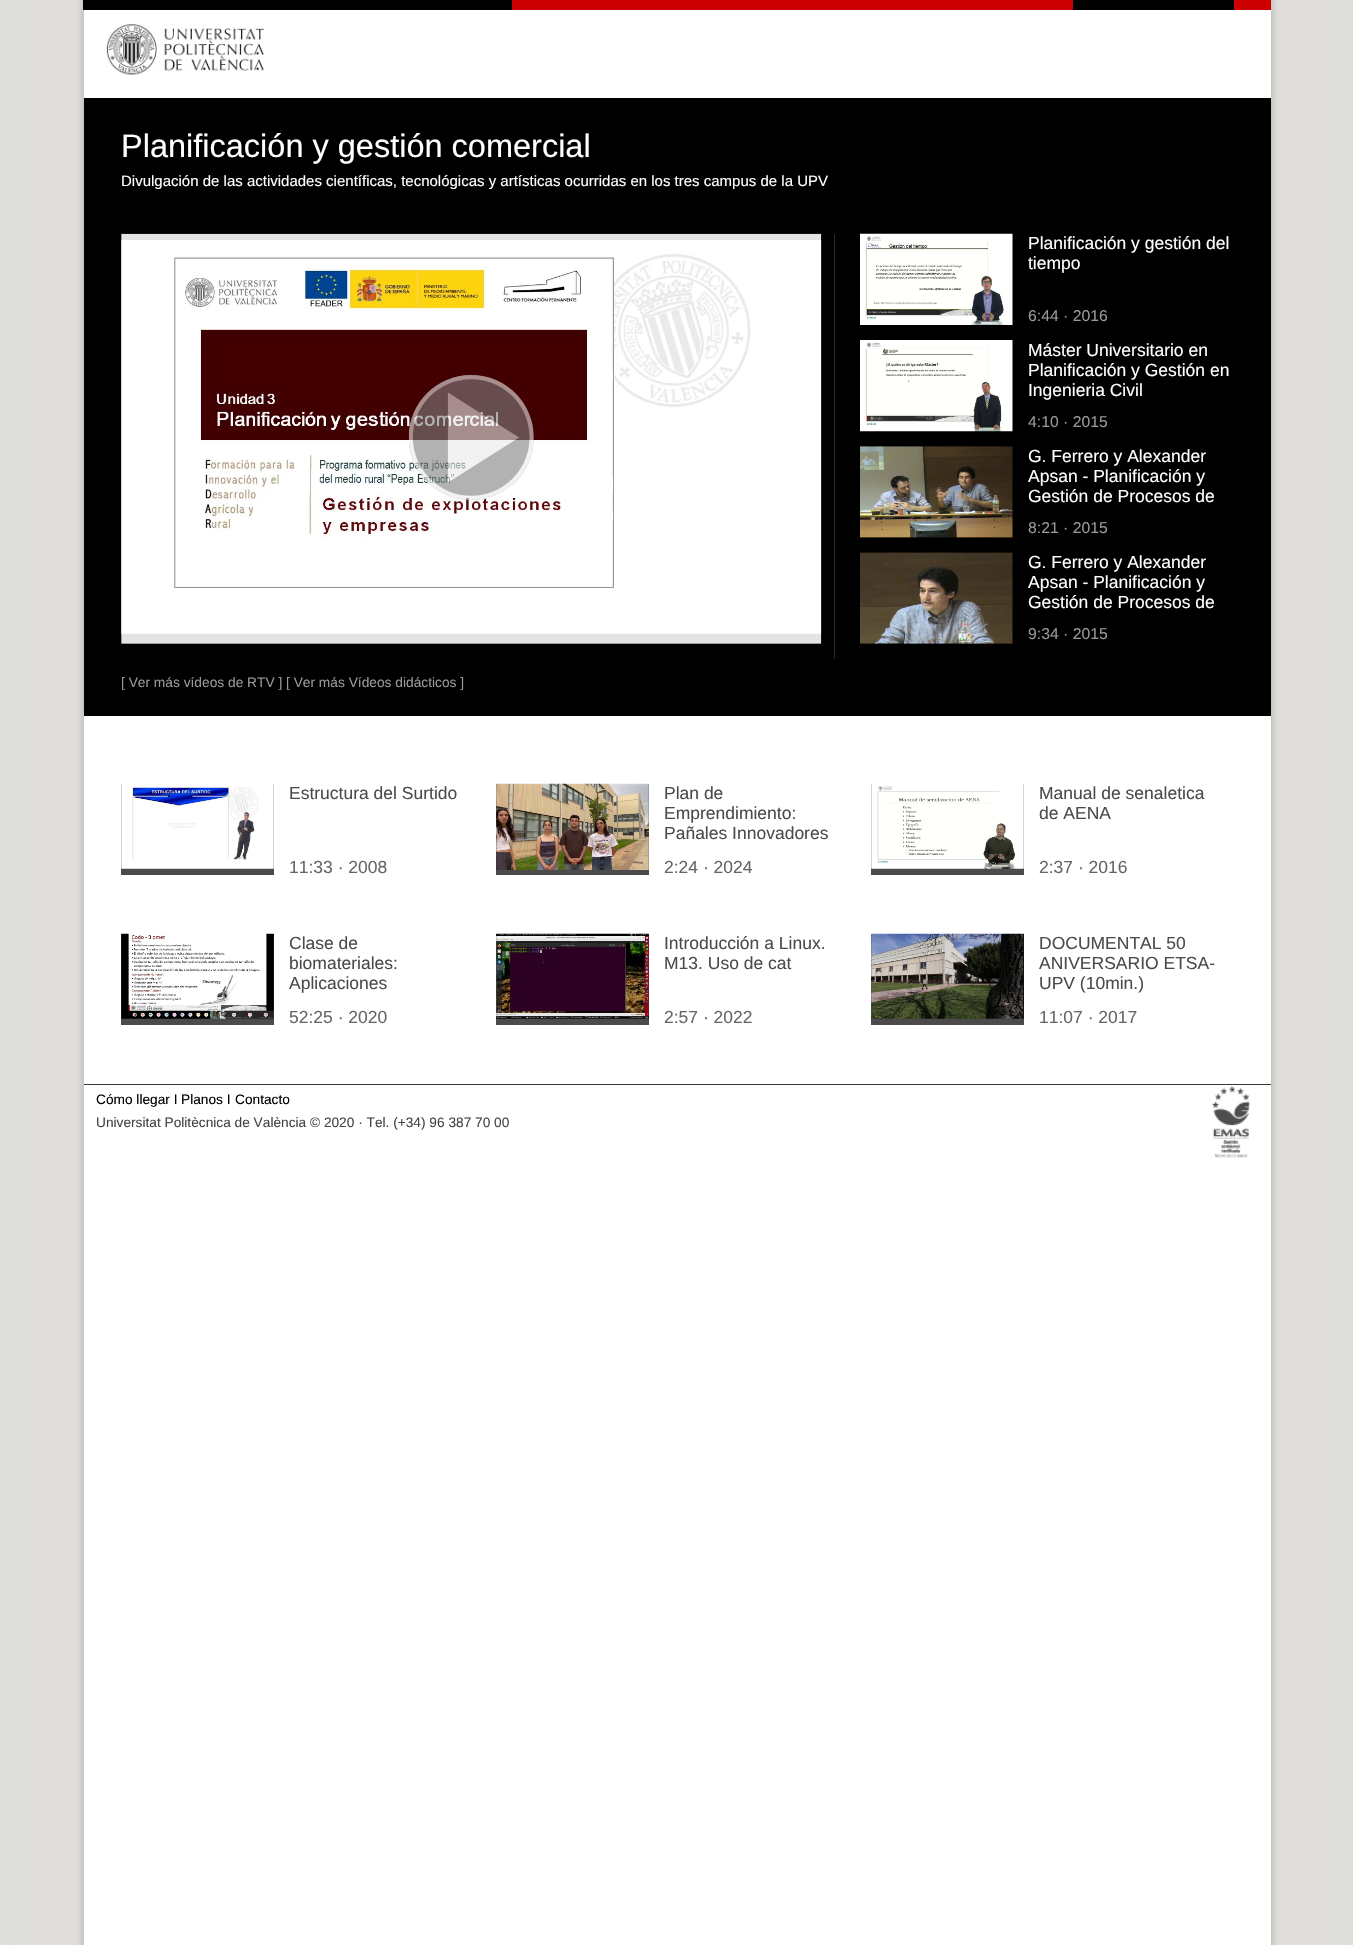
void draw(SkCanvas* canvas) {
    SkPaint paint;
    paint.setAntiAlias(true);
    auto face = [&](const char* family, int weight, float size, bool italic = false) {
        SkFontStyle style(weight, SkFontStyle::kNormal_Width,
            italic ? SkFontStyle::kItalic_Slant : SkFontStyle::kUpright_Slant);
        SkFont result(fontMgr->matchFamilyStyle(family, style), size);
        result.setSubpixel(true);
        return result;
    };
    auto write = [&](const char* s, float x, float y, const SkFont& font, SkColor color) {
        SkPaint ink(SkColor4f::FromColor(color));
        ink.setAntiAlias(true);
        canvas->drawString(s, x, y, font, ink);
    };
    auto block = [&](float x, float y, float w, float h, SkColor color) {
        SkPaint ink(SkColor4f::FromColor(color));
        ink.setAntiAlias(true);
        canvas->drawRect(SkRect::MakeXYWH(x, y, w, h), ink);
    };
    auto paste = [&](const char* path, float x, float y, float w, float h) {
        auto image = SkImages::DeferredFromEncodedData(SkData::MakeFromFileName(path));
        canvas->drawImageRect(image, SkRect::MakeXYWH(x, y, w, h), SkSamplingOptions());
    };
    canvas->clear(SK_ColorWHITE);
    paste("pic1.png", 0, 0, 1353, 1945);
    block(84, 10, 1187, 1935, SK_ColorWHITE);
    block(512, 0, 759, 10, SkColorSetRGB(204, 0, 0));
    block(83, 0, 429, 10, SK_ColorBLACK);
    block(1073, 0, 161, 10, SK_ColorBLACK);
    paste("pic2.png", 106, 24, 158, 51);
    block(84, 98, 1187, 618, SK_ColorBLACK);
    auto kFont1 = face("Liberation Sans", 400, 32.5f);
    write("Planificación y gestión comercial", 121, 157, kFont1, SK_ColorWHITE);
    auto kFont2 = face("Liberation Sans", 400, 15);
    write("Divulgación de las actividades científicas, tecnológicas y artísticas ocurridas en los tres campus de la UPV", 121, 186, kFont2, SK_ColorWHITE);
    paste("pic3.png", 121, 233, 701, 411);
    auto kFont3 = face("Liberation Sans", 400, 13.75f);
    write("[ Ver más vídeos de RTV ]", 121, 687, kFont3, SkColorSetRGB(153, 153, 153));
    write("[ Ver más Vídeos didácticos ]", 286, 687, kFont3, SkColorSetRGB(153, 153, 153));
    block(834, 234, 1, 425, SkColorSetRGB(42, 42, 42));
    paste("pic4.png", 860, 233, 153, 92);
    auto kFont4 = face("Liberation Sans", 400, 17.5f);
    write("Planificación y gestión del", 1028, 249, kFont4, SK_ColorWHITE);
    write("tiempo", 1028, 269, kFont4, SK_ColorWHITE);
    auto kFont5 = face("Liberation Sans", 400, 15.75f);
    write("6:44 · 2016", 1028, 321, kFont5, SkColorSetRGB(153, 153, 153));
    paste("pic5.png", 860, 340, 153, 92);
    write("Máster Universitario en", 1028, 356, kFont4, SK_ColorWHITE);
    write("Planificación y Gestión en", 1028, 376, kFont4, SK_ColorWHITE);
    write("Ingenieria Civil", 1028, 396, kFont4, SK_ColorWHITE);
    write("4:10 · 2015", 1028, 427, kFont5, SkColorSetRGB(153, 153, 153));
    paste("pic6.png", 860, 446, 153, 92);
    write("G. Ferrero y Alexander", 1028, 462, kFont4, SK_ColorWHITE);
    write("Apsan - Planificación y", 1028, 482, kFont4, SK_ColorWHITE);
    write("Gestión de Procesos de", 1028, 502, kFont4, SK_ColorWHITE);
    write("8:21 · 2015", 1028, 533, kFont5, SkColorSetRGB(153, 153, 153));
    paste("pic7.png", 860, 552, 153, 92);
    write("G. Ferrero y Alexander", 1028, 568, kFont4, SK_ColorWHITE);
    write("Apsan - Planificación y", 1028, 588, kFont4, SK_ColorWHITE);
    write("Gestión de Procesos de", 1028, 608, kFont4, SK_ColorWHITE);
    write("9:34 · 2015", 1028, 639, kFont5, SkColorSetRGB(153, 153, 153));
    block(121, 784, 153, 91, SkColorSetRGB(75, 75, 75));
    paste("pic8.png", 121, 784, 153, 85);
    write("Estructura del Surtido", 289, 799, kFont4, SkColorSetRGB(75, 75, 75));
    write("11:33 · 2008", 289, 873, kFont4, SkColorSetRGB(102, 102, 102));
    block(496, 784, 153, 91, SkColorSetRGB(75, 75, 75));
    paste("pic9.png", 496, 783, 153, 87);
    write("Plan de", 664, 799, kFont4, SkColorSetRGB(75, 75, 75));
    write("Emprendimiento:", 664, 819, kFont4, SkColorSetRGB(75, 75, 75));
    write("Pañales Innovadores", 664, 839, kFont4, SkColorSetRGB(75, 75, 75));
    write("2:24 · 2024", 664, 873, kFont4, SkColorSetRGB(102, 102, 102));
    block(871, 784, 153, 91, SkColorSetRGB(75, 75, 75));
    paste("pic10.png", 871, 784, 153, 85);
    write("Manual de senaletica", 1039, 799, kFont4, SkColorSetRGB(75, 75, 75));
    write("de AENA", 1039, 819, kFont4, SkColorSetRGB(75, 75, 75));
    write("2:37 · 2016", 1039, 873, kFont4, SkColorSetRGB(102, 102, 102));
    block(121, 934, 153, 91, SkColorSetRGB(75, 75, 75));
    paste("pic11.png", 121, 933, 153, 86);
    write("Clase de", 289, 949, kFont4, SkColorSetRGB(75, 75, 75));
    write("biomateriales:", 289, 969, kFont4, SkColorSetRGB(75, 75, 75));
    write("Aplicaciones", 289, 989, kFont4, SkColorSetRGB(75, 75, 75));
    write("52:25 · 2020", 289, 1023, kFont4, SkColorSetRGB(102, 102, 102));
    block(496, 934, 153, 91, SkColorSetRGB(75, 75, 75));
    paste("pic12.png", 496, 933, 153, 86);
    write("Introducción a Linux.", 664, 949, kFont4, SkColorSetRGB(75, 75, 75));
    write("M13. Uso de cat", 664, 969, kFont4, SkColorSetRGB(75, 75, 75));
    write("2:57 · 2022", 664, 1023, kFont4, SkColorSetRGB(102, 102, 102));
    block(871, 934, 153, 91, SkColorSetRGB(75, 75, 75));
    paste("pic13.png", 871, 933, 153, 86);
    write("DOCUMENTAL 50", 1039, 949, kFont4, SkColorSetRGB(75, 75, 75));
    write("ANIVERSARIO ETSA-", 1039, 969, kFont4, SkColorSetRGB(75, 75, 75));
    write("UPV (10min.)", 1039, 989, kFont4, SkColorSetRGB(75, 75, 75));
    write("11:07 · 2017", 1039, 1023, kFont4, SkColorSetRGB(102, 102, 102));
    block(84, 1084, 1187, 1, SkColorSetRGB(55, 55, 55));
    auto kFont6 = face("Liberation Sans", 400, 13.7f);
    write("Cómo llegar I", 96, 1104, kFont6, SK_ColorBLACK);
    write("Planos I", 181, 1104, kFont6, SK_ColorBLACK);
    write("Contacto", 235, 1104, kFont6, SK_ColorBLACK);
    write("Universitat Politècnica de València © 2020 · Tel. (+34) 96 387 70 00", 96, 1127, kFont6, SkColorSetRGB(68, 68, 68));
    paste("pic14.png", 1212, 1086, 39, 72);
}
